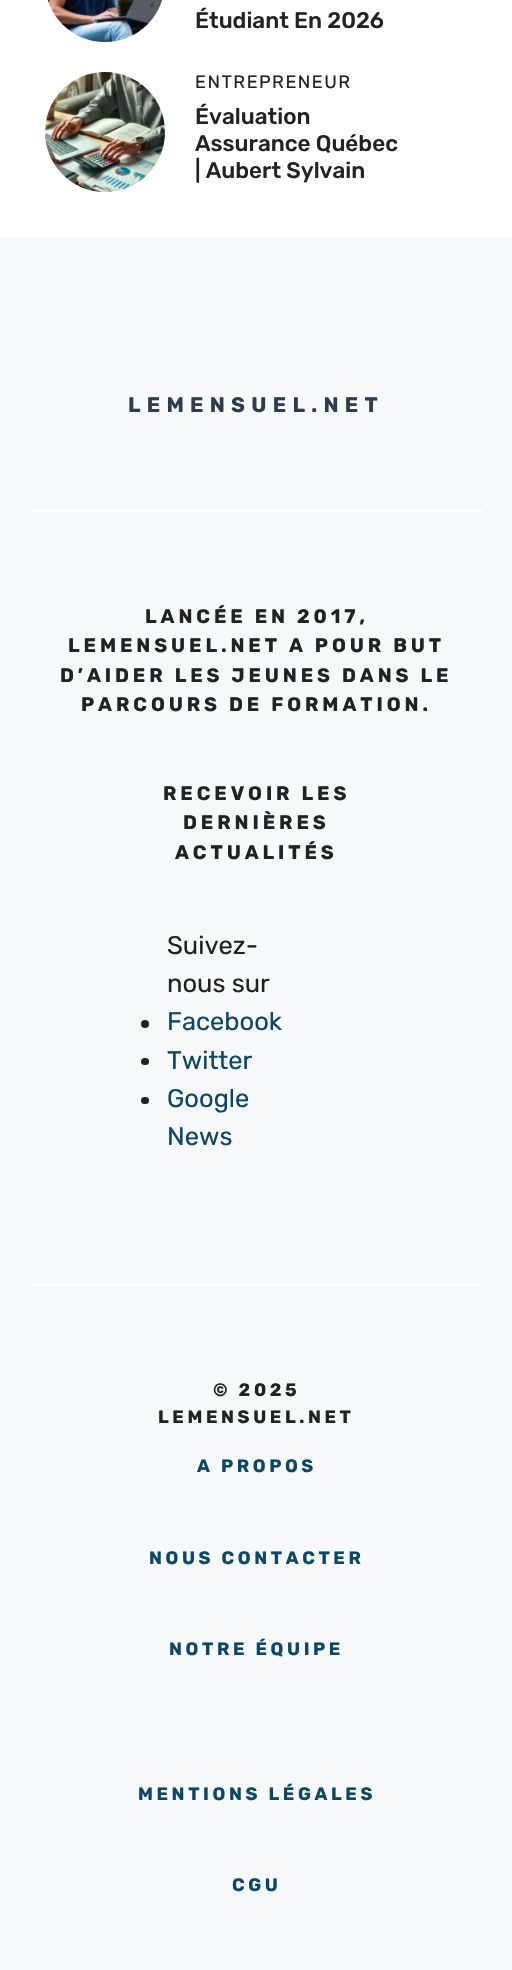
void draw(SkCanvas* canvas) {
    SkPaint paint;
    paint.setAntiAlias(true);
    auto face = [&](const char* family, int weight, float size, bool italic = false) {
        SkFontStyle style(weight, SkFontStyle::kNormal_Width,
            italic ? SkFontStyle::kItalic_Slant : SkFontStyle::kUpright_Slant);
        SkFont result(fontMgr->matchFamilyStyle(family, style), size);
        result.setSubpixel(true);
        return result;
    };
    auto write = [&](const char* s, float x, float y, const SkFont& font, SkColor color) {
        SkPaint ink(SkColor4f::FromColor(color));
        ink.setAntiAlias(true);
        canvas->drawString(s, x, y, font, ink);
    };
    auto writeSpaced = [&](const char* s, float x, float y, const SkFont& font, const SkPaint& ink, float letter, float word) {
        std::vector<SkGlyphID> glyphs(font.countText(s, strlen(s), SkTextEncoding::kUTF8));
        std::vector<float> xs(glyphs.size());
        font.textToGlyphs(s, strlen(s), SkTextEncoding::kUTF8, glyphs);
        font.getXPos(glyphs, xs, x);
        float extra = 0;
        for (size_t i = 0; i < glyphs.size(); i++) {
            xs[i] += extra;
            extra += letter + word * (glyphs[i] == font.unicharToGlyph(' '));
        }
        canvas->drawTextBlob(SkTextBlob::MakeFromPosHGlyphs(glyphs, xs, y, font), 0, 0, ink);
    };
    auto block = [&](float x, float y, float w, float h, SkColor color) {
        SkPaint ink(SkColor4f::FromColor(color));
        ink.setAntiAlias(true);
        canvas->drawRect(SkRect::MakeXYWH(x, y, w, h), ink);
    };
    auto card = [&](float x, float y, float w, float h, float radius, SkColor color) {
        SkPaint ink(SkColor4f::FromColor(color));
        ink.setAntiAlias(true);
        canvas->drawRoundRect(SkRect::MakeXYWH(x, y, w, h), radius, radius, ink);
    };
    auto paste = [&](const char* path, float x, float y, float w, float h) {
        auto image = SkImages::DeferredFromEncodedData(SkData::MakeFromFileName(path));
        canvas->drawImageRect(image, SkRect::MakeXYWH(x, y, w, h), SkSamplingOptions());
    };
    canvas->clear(SK_ColorWHITE);
    paste("pic1.png", 47, 0, 116, 42);
    auto kFont1 = face("Rubik", 500, 22.5f);
    write("Étudiant En 2026", 195, 28, kFont1, SkColorSetRGB(34, 34, 34));
    paste("pic2.png", 45, 72, 120, 120);
    auto kFont2 = face("Rubik", 400, 18);
    paint.setColor(SkColorSetRGB(34, 34, 34));
    writeSpaced("ENTREPRENEUR", 195, 88, kFont2, paint, 1.5f, 0);
    write("Évaluation", 195, 124, kFont1, SkColorSetRGB(34, 34, 34));
    write("Assurance Québec", 195, 151, kFont1, SkColorSetRGB(34, 34, 34));
    write("| Aubert Sylvain", 195, 178, kFont1, SkColorSetRGB(34, 34, 34));
    block(0, 237, 512, 1733, SkColorSetRGB(247, 248, 249));
    auto kFont3 = face("Rubik", 700, 21);
    paint.setColor(SkColorSetRGB(46, 61, 77));
    writeSpaced("LEMENSUEL.NET", 128, 412, kFont3, paint, 6.25f, 0);
    block(30, 510, 453, 2, SK_ColorWHITE);
    block(30, 1284, 453, 2, SK_ColorWHITE);
    auto kFont4 = face("Rubik", 700, 19.5f);
    paint.setColor(SkColorSetRGB(34, 34, 34));
    writeSpaced("LANCÉE EN 2017,", 145, 623, kFont4, paint, 3.9f, 0);
    writeSpaced("LEMENSUEL.NET A POUR BUT", 68, 652, kFont4, paint, 3.9f, 0);
    writeSpaced("D’AIDER LES JEUNES DANS LE", 60, 682, kFont4, paint, 3.9f, 0);
    writeSpaced("PARCOURS DE FORMATION.", 81, 711, kFont4, paint, 3.9f, 0);
    writeSpaced("RECEVOIR LES", 163, 800, kFont4, paint, 3.9f, 0);
    writeSpaced("DERNIÈRES", 183, 829, kFont4, paint, 3.9f, 0);
    writeSpaced("ACTUALITÉS", 175, 859, kFont4, paint, 3.9f, 0);
    auto kFont5 = face("Rubik", 400, 25.5f);
    write("Suivez-", 167, 954, kFont5, SkColorSetRGB(34, 34, 34));
    write("nous sur", 167, 992, kFont5, SkColorSetRGB(34, 34, 34));
    canvas->drawCircle(145, 1024, 4, paint);
    write("Facebook", 167, 1030, kFont5, SkColorSetRGB(12, 71, 103));
    card(141, 1058, 8, 7, 3.5f, SkColorSetRGB(34, 34, 34));
    write("Twitter", 167, 1069, kFont5, SkColorSetRGB(12, 71, 103));
    card(141, 1097, 8, 7, 3.5f, SkColorSetRGB(34, 34, 34));
    write("Google", 167, 1107, kFont5, SkColorSetRGB(12, 71, 103));
    write("News", 167, 1145, kFont5, SkColorSetRGB(12, 71, 103));
    auto kFont6 = face("Rubik", 700, 18);
    writeSpaced("© 2025", 213, 1396, kFont6, paint, 3.6f, 0);
    writeSpaced("LEMENSUEL.NET", 158, 1423, kFont6, paint, 3.6f, 0);
    paint.setColor(SkColorSetRGB(12, 71, 103));
    writeSpaced("A PROPOS", 197, 1472, kFont6, paint, 3.6f, 0);
    writeSpaced("NOUS CONTACTER", 149, 1564, kFont6, paint, 3.6f, 0);
    writeSpaced("NOTRE ÉQUIPE", 169, 1655, kFont6, paint, 3.6f, 0);
    writeSpaced("MENTIONS LÉGALES", 138, 1800, kFont6, paint, 3.6f, 0);
    writeSpaced("CGU", 232, 1891, kFont6, paint, 3.6f, 0);
}
